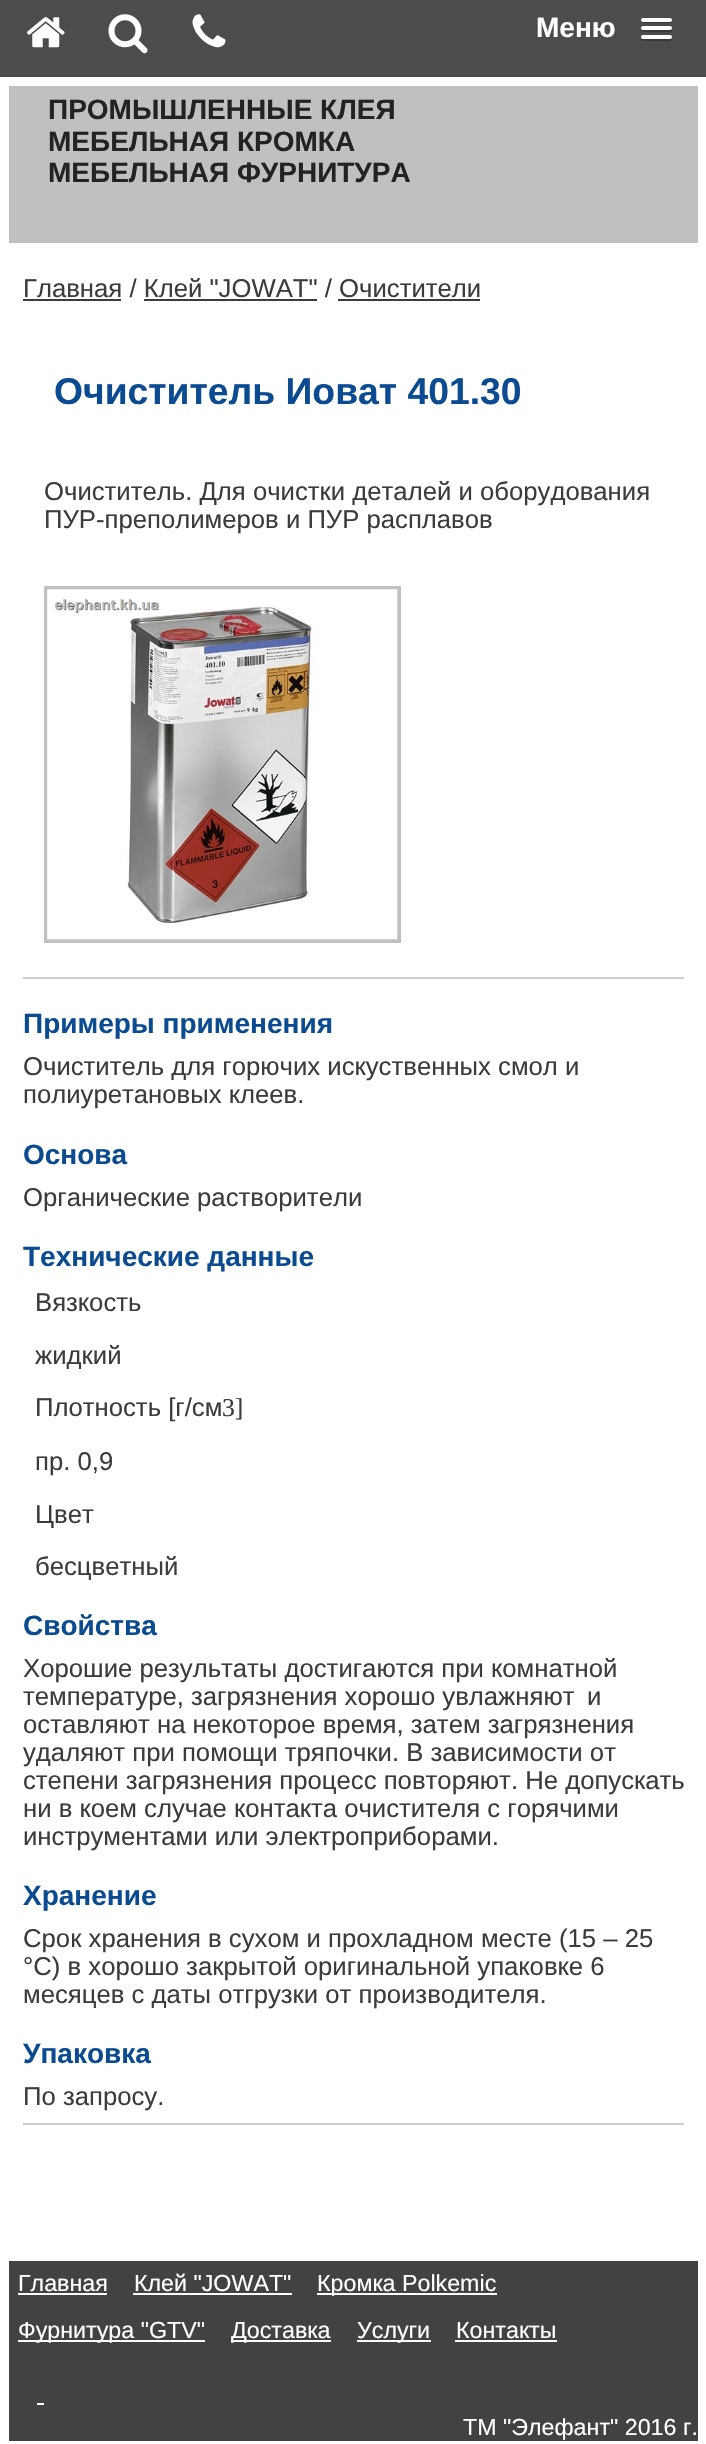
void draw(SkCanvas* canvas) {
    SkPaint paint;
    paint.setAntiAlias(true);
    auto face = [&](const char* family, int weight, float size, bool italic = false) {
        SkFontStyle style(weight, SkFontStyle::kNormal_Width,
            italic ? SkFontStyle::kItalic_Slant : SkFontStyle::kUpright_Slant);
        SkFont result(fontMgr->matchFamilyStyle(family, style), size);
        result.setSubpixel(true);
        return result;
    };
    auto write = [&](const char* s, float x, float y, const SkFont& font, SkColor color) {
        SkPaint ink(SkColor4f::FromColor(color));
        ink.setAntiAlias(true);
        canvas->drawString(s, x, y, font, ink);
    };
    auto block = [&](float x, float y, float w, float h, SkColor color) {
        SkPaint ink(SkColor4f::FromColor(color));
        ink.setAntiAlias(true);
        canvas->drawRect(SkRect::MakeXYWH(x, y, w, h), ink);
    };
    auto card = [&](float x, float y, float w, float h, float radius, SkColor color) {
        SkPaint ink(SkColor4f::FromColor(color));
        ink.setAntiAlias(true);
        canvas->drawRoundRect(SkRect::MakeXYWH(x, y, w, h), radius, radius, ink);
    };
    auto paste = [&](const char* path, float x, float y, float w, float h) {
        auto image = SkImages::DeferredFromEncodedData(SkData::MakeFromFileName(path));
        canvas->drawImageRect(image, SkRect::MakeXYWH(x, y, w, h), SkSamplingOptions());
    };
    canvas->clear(SK_ColorWHITE);
    block(0, 0, 706, 77, SkColorSetRGB(76, 76, 76));
    paste("pic1.png", 26, 17, 39, 31);
    paste("pic2.png", 108, 14, 40, 40);
    paste("pic3.png", 192, 14, 34, 34);
    auto kFont1 = face("Liberation Sans", 700, 28);
    write("Меню", 536, 37, kFont1, SK_ColorWHITE);
    paint.setColor(SkColorSetRGB(57, 57, 57));
    canvas->drawPath(SkPathBuilder().moveTo(641, 20.5f).cubicTo(640, 24, 646.5f, 23, 647.5f, 23).lineTo(665.5f, 23).cubicTo(666.5f, 23, 673.5f, 24, 672, 20).lineTo(670.5f, 21).lineTo(642, 21).close().detach(), paint);
    card(641, 18, 31, 4, 2, SK_ColorWHITE);
    canvas->drawPath(SkPathBuilder().moveTo(641, 29.5f).cubicTo(640, 33, 646.5f, 32, 647.5f, 32).lineTo(665.5f, 32).cubicTo(666, 32, 674, 33, 671.5f, 29).lineTo(670.5f, 29.5f).lineTo(642, 29.5f).close().detach(), paint);
    card(641, 26, 31, 4, 2, SK_ColorWHITE);
    canvas->drawPath(SkPathBuilder().moveTo(641, 38).cubicTo(639.5f, 42, 646.5f, 41, 647.5f, 41).lineTo(665.5f, 41).cubicTo(666.5f, 41, 671.5f, 42, 672, 39.5f).lineTo(671.5f, 38).lineTo(670.5f, 38.5f).cubicTo(668, 39, 642, 39, 641, 38).close().detach(), paint);
    card(641, 35, 31, 4, 2, SK_ColorWHITE);
    block(9, 86, 689, 157, SkColorSetRGB(192, 192, 192));
    write("ПРОМЫШЛЕННЫЕ КЛЕЯ", 48, 119, kFont1, SkColorSetRGB(35, 35, 35));
    write("МЕБЕЛЬНАЯ КРОМКА", 48, 151, kFont1, SkColorSetRGB(35, 35, 35));
    write("МЕБЕЛЬНАЯ ФУРНИТУРА", 48, 182, kFont1, SkColorSetRGB(35, 35, 35));
    auto kFont2 = face("Liberation Sans", 400, 25.7f);
    write("Главная / Клей \"JOWAT\" / Очистители", 23, 297, kFont2, SkColorSetRGB(60, 60, 60));
    block(23, 299, 98, 2, SkColorSetRGB(60, 60, 60));
    block(144, 299, 173, 2, SkColorSetRGB(60, 60, 60));
    block(338, 299, 142, 2, SkColorSetRGB(60, 60, 60));
    auto kFont3 = face("Liberation Sans", 700, 37.3f);
    write("Очиститель Иоват 401.30", 54, 404, kFont3, SkColorSetRGB(10, 75, 145));
    write("Очиститель. Для очистки деталей и оборудования", 44, 500, kFont2, SkColorSetRGB(60, 60, 60));
    write("ПУР-преполимеров и ПУР расплавов", 44, 528, kFont2, SkColorSetRGB(60, 60, 60));
    paint.setStyle(SkPaint::kStroke_Style);
    paint.setStrokeWidth(4);
    paint.setColor(SkColorSetRGB(192, 192, 192));
    canvas->drawRect(SkRect::MakeXYWH(46, 588, 353, 353), paint);
    paste("pic4.png", 47, 589, 351, 351);
    block(23, 977, 661, 2, SkColorSetRGB(204, 204, 204));
    write("Примеры применения", 23, 1033, kFont1, SkColorSetRGB(10, 75, 145));
    write("Очиститель для горючих искуственных смол и", 23, 1075, kFont2, SkColorSetRGB(60, 60, 60));
    write("полиуретановых клеев.", 23, 1103, kFont2, SkColorSetRGB(60, 60, 60));
    write("Основа", 23, 1164, kFont1, SkColorSetRGB(10, 75, 145));
    write("Органические растворители", 23, 1206, kFont2, SkColorSetRGB(60, 60, 60));
    write("Технические данные", 23, 1266, kFont1, SkColorSetRGB(10, 75, 145));
    write("Вязкость", 35, 1311, kFont2, SkColorSetRGB(60, 60, 60));
    write("жидкий", 35, 1364, kFont2, SkColorSetRGB(60, 60, 60));
    write("Плотность [г/см", 35, 1416, kFont2, SkColorSetRGB(60, 60, 60));
    auto kFont4 = face("Liberation Serif", 400, 25.7f);
    write("3]", 222, 1416, kFont4, SkColorSetRGB(60, 60, 60));
    write("пр. 0,9", 35, 1470, kFont2, SkColorSetRGB(60, 60, 60));
    write("Цвет", 35, 1523, kFont2, SkColorSetRGB(60, 60, 60));
    write("бесцветный", 35, 1575, kFont2, SkColorSetRGB(60, 60, 60));
    write("Свойства", 23, 1635, kFont1, SkColorSetRGB(10, 75, 145));
    write("Хорошие результаты достигаются при комнатной", 23, 1677, kFont2, SkColorSetRGB(60, 60, 60));
    write("температуре, загрязнения хорошо увлажняют", 23, 1705, kFont2, SkColorSetRGB(60, 60, 60));
    write("и", 587, 1705, kFont2, SkColorSetRGB(60, 60, 60));
    write("оставляют на некоторое время, затем загрязнения", 23, 1733, kFont2, SkColorSetRGB(60, 60, 60));
    write("удаляют при помощи тряпочки. В зависимости от", 23, 1761, kFont2, SkColorSetRGB(60, 60, 60));
    write("степени загрязнения процесс повторяют. Не допускать", 23, 1789, kFont2, SkColorSetRGB(60, 60, 60));
    write("ни в коем случае контакта очистителя с горячими", 23, 1817, kFont2, SkColorSetRGB(60, 60, 60));
    write("инструментами или электроприборами.", 23, 1845, kFont2, SkColorSetRGB(60, 60, 60));
    write("Хранение", 23, 1905, kFont1, SkColorSetRGB(10, 75, 145));
    write("Cрок хранения в сухом и прохладном месте (15 – 25", 23, 1947, kFont2, SkColorSetRGB(60, 60, 60));
    write("°С) в хорошо закрытой оригинальной упаковке 6", 23, 1975, kFont2, SkColorSetRGB(60, 60, 60));
    write("месяцев с даты отгрузки от производителя.", 23, 2003, kFont2, SkColorSetRGB(60, 60, 60));
    write("Упаковка", 23, 2063, kFont1, SkColorSetRGB(10, 75, 145));
    write("По запросу.", 23, 2105, kFont2, SkColorSetRGB(60, 60, 60));
    block(23, 2123, 661, 2, SkColorSetRGB(204, 204, 204));
    block(9, 2261, 689, 180, SkColorSetRGB(66, 66, 66));
    auto kFont5 = face("Liberation Sans", 400, 23.25f);
    write("Главная", 18, 2291, kFont5, SK_ColorWHITE);
    block(18, 2293, 89, 2, SK_ColorWHITE);
    write("Клей \"JOWAT\"", 134, 2291, kFont5, SK_ColorWHITE);
    block(133, 2293, 159, 2, SK_ColorWHITE);
    block(317, 2293, 180, 2, SK_ColorWHITE);
    write("Кромка Polkemic", 317, 2291, kFont5, SK_ColorWHITE);
    block(18, 2340, 187, 2, SK_ColorWHITE);
    write("Фурнитура \"GTV\"", 18, 2338, kFont5, SK_ColorWHITE);
    block(231, 2340, 100, 2, SK_ColorWHITE);
    write("Доставка", 231, 2338, kFont5, SK_ColorWHITE);
    block(357, 2340, 74, 2, SK_ColorWHITE);
    write("Услуги", 357, 2338, kFont5, SK_ColorWHITE);
    write("Контакты", 456, 2338, kFont5, SK_ColorWHITE);
    block(455, 2340, 102, 2, SK_ColorWHITE);
    block(37, 2403, 7, 2, SK_ColorWHITE);
    write("ТМ \"Элефант\" 2016 г.", 463, 2435, kFont5, SK_ColorWHITE);
}
